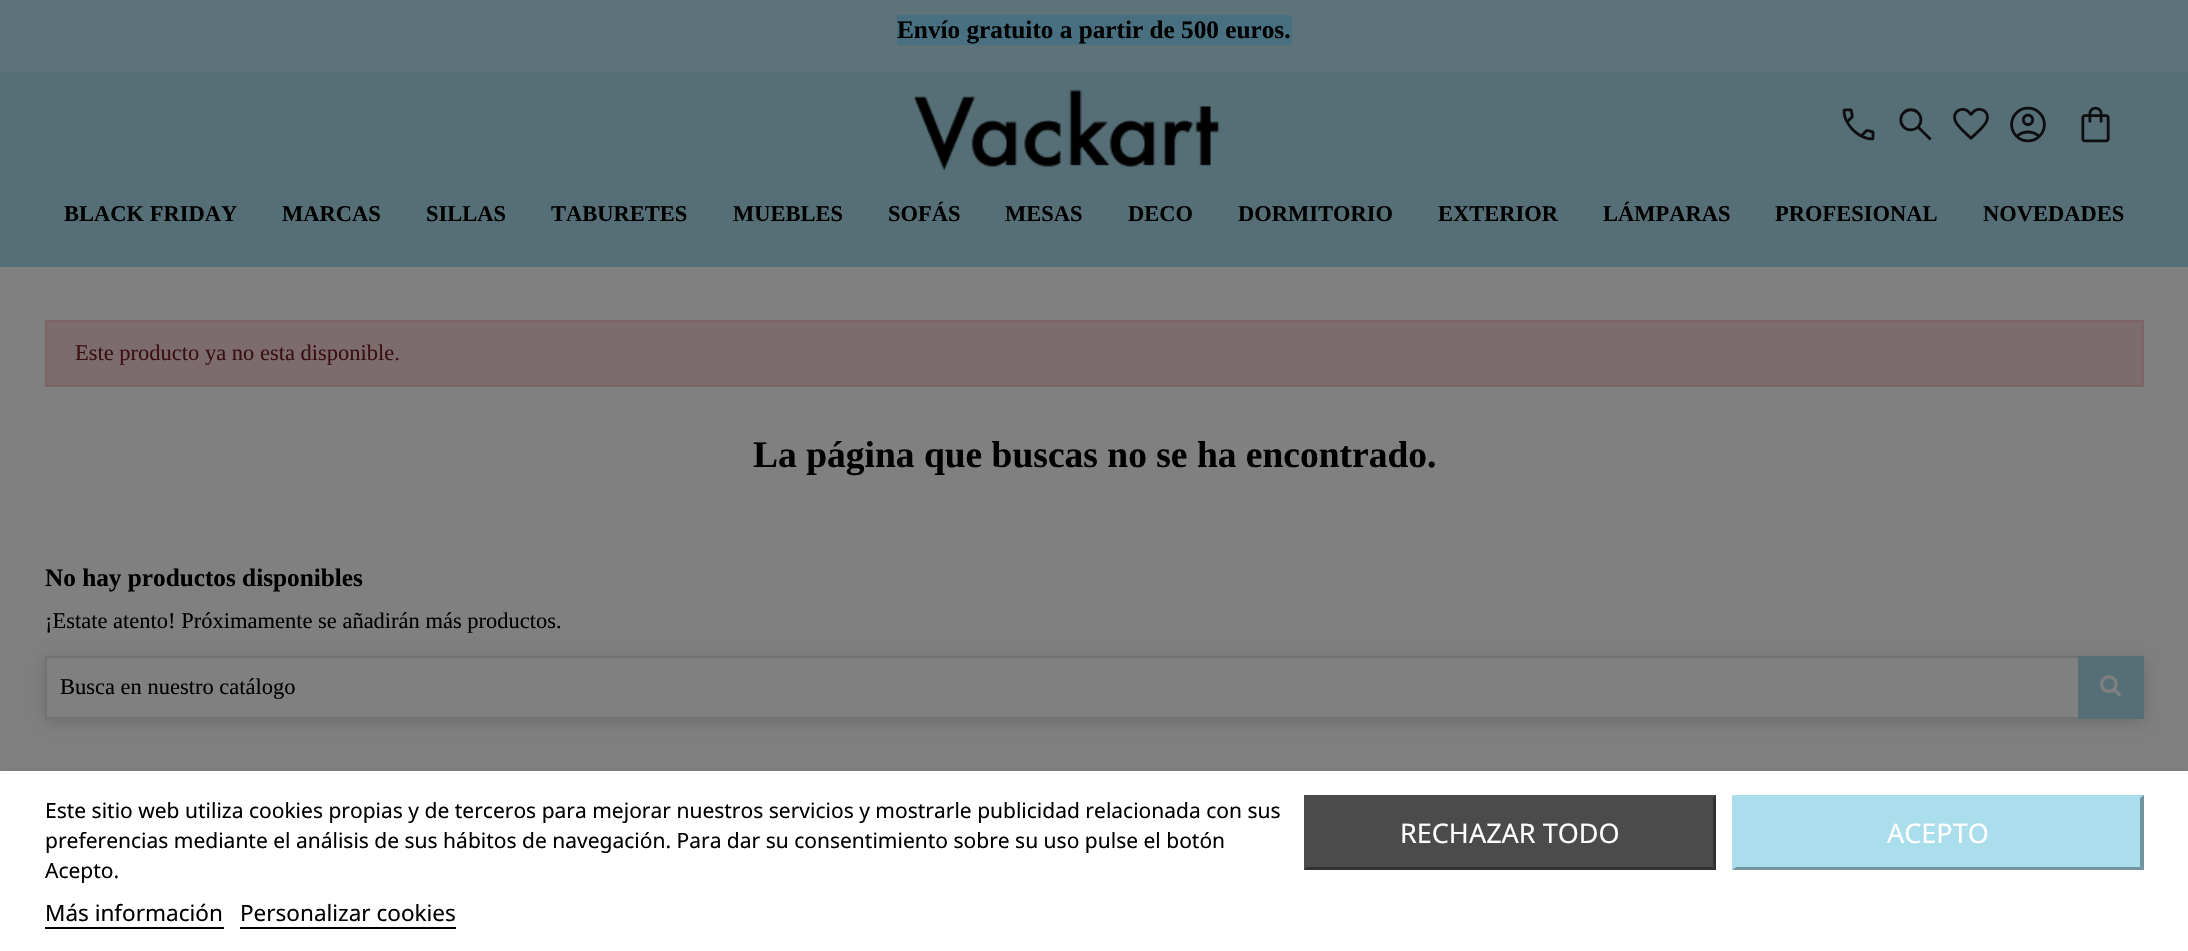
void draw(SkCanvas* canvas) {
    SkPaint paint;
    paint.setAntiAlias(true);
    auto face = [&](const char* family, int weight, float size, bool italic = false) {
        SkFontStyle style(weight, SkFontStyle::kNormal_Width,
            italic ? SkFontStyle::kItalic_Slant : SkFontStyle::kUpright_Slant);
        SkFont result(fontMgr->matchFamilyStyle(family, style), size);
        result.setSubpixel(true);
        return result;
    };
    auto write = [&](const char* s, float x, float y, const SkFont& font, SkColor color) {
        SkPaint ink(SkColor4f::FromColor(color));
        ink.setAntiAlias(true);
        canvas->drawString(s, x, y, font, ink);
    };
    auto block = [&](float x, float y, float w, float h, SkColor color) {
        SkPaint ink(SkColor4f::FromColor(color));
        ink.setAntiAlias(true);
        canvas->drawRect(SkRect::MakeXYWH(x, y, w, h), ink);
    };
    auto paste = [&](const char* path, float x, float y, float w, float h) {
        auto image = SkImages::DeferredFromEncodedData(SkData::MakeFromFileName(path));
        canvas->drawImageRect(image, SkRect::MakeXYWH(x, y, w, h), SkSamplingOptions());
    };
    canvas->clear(SkColorSetRGB(128, 128, 128));
    block(0, 72, 2188, 195, SkColorSetRGB(86, 111, 119));
    block(0, 0, 2188, 72, SkColorSetRGB(93, 115, 121));
    block(897, 15, 395, 30, SkColorSetRGB(72, 112, 128));
    auto kFont1 = face("Liberation Serif", 700, 25.25f);
    write("Envío gratuito a partir de 500 euros.", 897, 38, kFont1, SK_ColorBLACK);
    paste("pic1.png", 913, 89, 307, 82);
    paste("pic2.png", 1842, 108, 33, 33);
    paste("pic3.png", 1899, 108, 33, 33);
    paste("pic4.png", 1953, 108, 36, 32);
    paste("pic5.png", 2010, 106, 36, 37);
    paste("pic6.png", 2081, 106, 29, 37);
    auto kFont2 = face("Liberation Serif", 700, 22.5f);
    write("BLACK FRIDAY", 64, 221, kFont2, SK_ColorBLACK);
    write("MARCAS", 282, 221, kFont2, SK_ColorBLACK);
    write("SILLAS", 426, 221, kFont2, SK_ColorBLACK);
    write("TABURETES", 551, 221, kFont2, SK_ColorBLACK);
    write("MUEBLES", 733, 221, kFont2, SK_ColorBLACK);
    write("SOFÁS", 888, 221, kFont2, SK_ColorBLACK);
    write("MESAS", 1005, 221, kFont2, SK_ColorBLACK);
    write("DECO", 1128, 221, kFont2, SK_ColorBLACK);
    write("DORMITORIO", 1238, 221, kFont2, SK_ColorBLACK);
    write("EXTERIOR", 1438, 221, kFont2, SK_ColorBLACK);
    write("LÁMPARAS", 1603, 221, kFont2, SK_ColorBLACK);
    write("PROFESIONAL", 1775, 221, kFont2, SK_ColorBLACK);
    write("NOVEDADES", 1983, 221, kFont2, SK_ColorBLACK);
    paint.setColor(SkColorSetRGB(124, 108, 109));
    canvas->drawRect(SkRect::MakeXYWH(46, 321, 2097, 65), paint);
    paint.setStyle(SkPaint::kStroke_Style);
    paint.setStrokeWidth(2);
    paint.setColor(SkColorSetRGB(123, 99, 102));
    canvas->drawRect(SkRect::MakeXYWH(46, 321, 2097, 65), paint);
    auto kFont3 = face("Liberation Serif", 400, 22.5f);
    write("Este producto ya no esta disponible.", 75, 360, kFont3, SkColorSetRGB(57, 14, 18));
    auto kFont4 = face("Liberation Serif", 700, 37.5f);
    write("La página que buscas no se ha encontrado.", 753, 467, kFont4, SK_ColorBLACK);
    write("No hay productos disponibles", 45, 586, kFont1, SK_ColorBLACK);
    write("¡Estate atento! Próximamente se añadirán más productos.", 45, 628, kFont3, SK_ColorBLACK);
    canvas->save();
    canvas->clipPath(SkPathBuilder(SkPathFillType::kEvenOdd).moveTo(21, 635).lineTo(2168, 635).lineTo(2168, 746).lineTo(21, 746).close().moveTo(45, 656).lineTo(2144, 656).lineTo(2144, 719).lineTo(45, 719).close().detach(), true);
    paint.setStyle(SkPaint::kFill_Style);
    paint.setColor(SkColorSetARGB(38, 0, 0, 0));
    paint.setMaskFilter(SkMaskFilter::MakeBlur(kNormal_SkBlurStyle, 7.5f));
    canvas->drawRect(SkRect::MakeXYWH(45, 659, 2099, 63), paint);
    paint.setMaskFilter(nullptr);
    canvas->restore();
    paint.setStyle(SkPaint::kStroke_Style);
    paint.setColor(SkColorSetRGB(114, 114, 114));
    canvas->drawRect(SkRect::MakeXYWH(46, 657, 2097, 61), paint);
    write("Busca en nuestro catálogo", 60, 694, kFont3, SK_ColorBLACK);
    block(2078, 656, 66, 63, SkColorSetRGB(86, 111, 119));
    paste("pic7.png", 2100, 675, 21, 22);
    paint.setStyle(SkPaint::kFill_Style);
    paint.setColor(SkColorSetRGB(112, 112, 112));
    paint.setMaskFilter(SkMaskFilter::MakeBlur(kNormal_SkBlurStyle, 4));
    canvas->drawRect(SkRect::MakeXYWH(0, 773, 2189, 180), paint);
    paint.setMaskFilter(nullptr);
    block(0, 771, 2188, 180, SK_ColorWHITE);
    auto kFont5 = face("Noto Sans", 400, 21);
    write("Este sitio web utiliza cookies propias y de terceros para mejorar nuestros servicios y mostrarle publicidad relacionada con sus", 45, 818, kFont5, SK_ColorBLACK);
    write("preferencias mediante el análisis de sus hábitos de navegación. Para dar su consentimiento sobre su uso pulse el botón", 45, 848, kFont5, SK_ColorBLACK);
    write("Acepto.", 45, 878, kFont5, SK_ColorBLACK);
    auto kFont6 = face("Noto Sans", 400, 22.5f);
    write("Más información", 45, 921, kFont6, SK_ColorBLACK);
    block(45, 927, 179, 2, SK_ColorBLACK);
    write("Personalizar cookies", 240, 921, kFont6, SK_ColorBLACK);
    block(240, 927, 216, 2, SK_ColorBLACK);
    block(1304, 795, 412, 75, SkColorSetRGB(75, 75, 75));
    paint.setColor(SkColorSetRGB(50, 50, 50));
    canvas->drawPath(SkPathBuilder().moveTo(1716, 795).lineTo(1716, 870).lineTo(1713, 867).lineTo(1713, 798).close().detach(), paint);
    canvas->drawPath(SkPathBuilder().moveTo(1716, 870).lineTo(1304, 870).lineTo(1306, 867).lineTo(1713, 867).close().detach(), paint);
    paint.setColor(SkColorSetRGB(75, 75, 75));
    canvas->drawPath(SkPathBuilder().moveTo(1304, 870).lineTo(1304, 795).lineTo(1306, 798).lineTo(1306, 867).close().detach(), paint);
    auto kFont7 = face("Noto Sans", 400, 27);
    write("RECHAZAR TODO", 1400, 843, kFont7, SK_ColorWHITE);
    block(1733, 795, 411, 75, SkColorSetRGB(171, 222, 237));
    paint.setColor(SkColorSetRGB(171, 222, 237));
    canvas->drawPath(SkPathBuilder().moveTo(1732, 795).lineTo(2144, 795).lineTo(2140, 798).lineTo(1736, 798).close().detach(), paint);
    paint.setColor(SkColorSetRGB(114, 148, 158));
    canvas->drawPath(SkPathBuilder().moveTo(2144, 795).lineTo(2144, 870).lineTo(2140, 867).lineTo(2140, 798).close().detach(), paint);
    canvas->drawPath(SkPathBuilder().moveTo(2144, 870).lineTo(1732, 870).lineTo(1736, 867).lineTo(2140, 867).close().detach(), paint);
    paint.setColor(SkColorSetRGB(171, 222, 237));
    canvas->drawPath(SkPathBuilder().moveTo(1732, 870).lineTo(1732, 795).lineTo(1736, 798).lineTo(1736, 867).close().detach(), paint);
    write("ACEPTO", 1887, 843, kFont7, SK_ColorWHITE);
}
